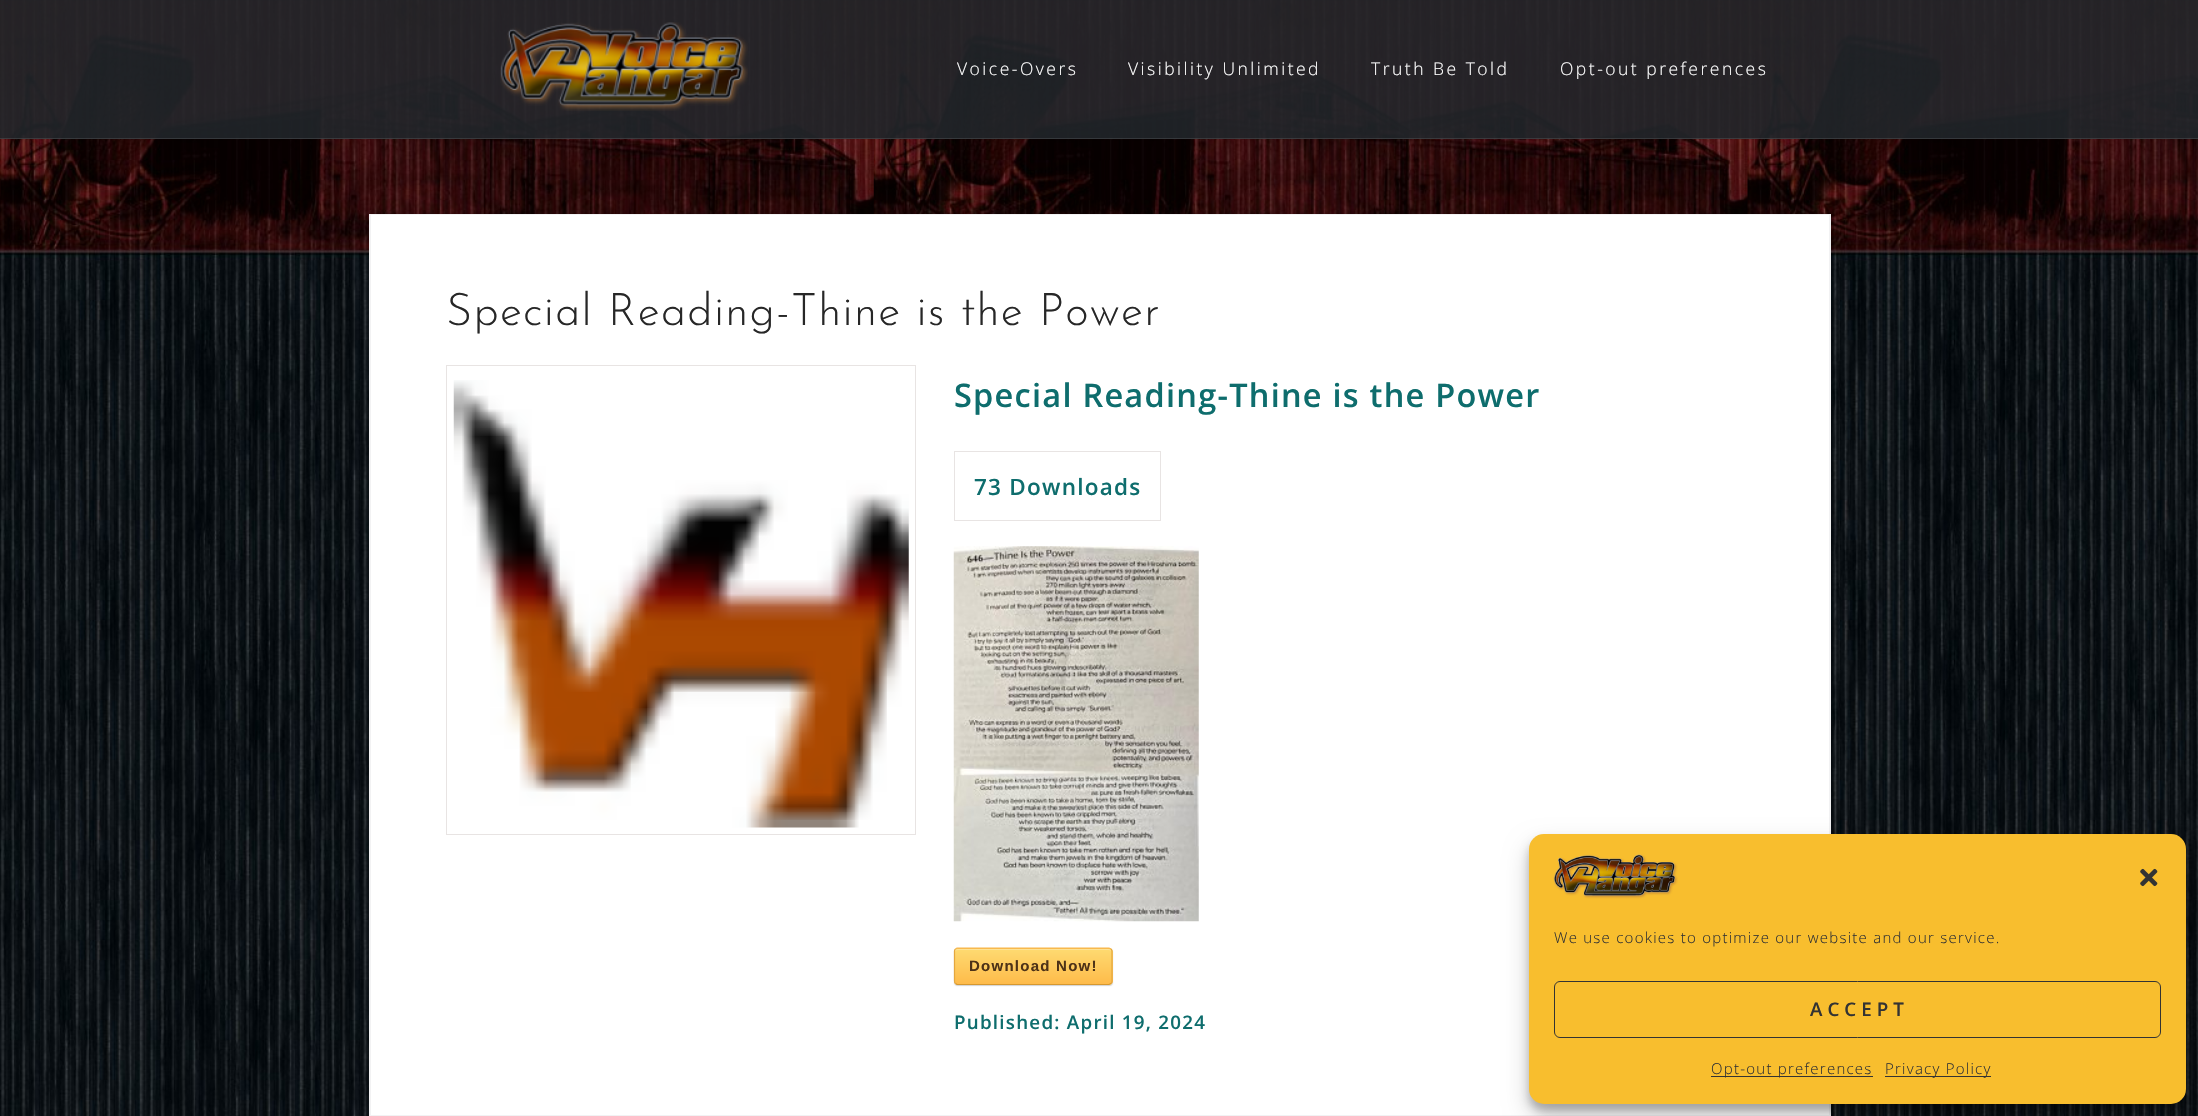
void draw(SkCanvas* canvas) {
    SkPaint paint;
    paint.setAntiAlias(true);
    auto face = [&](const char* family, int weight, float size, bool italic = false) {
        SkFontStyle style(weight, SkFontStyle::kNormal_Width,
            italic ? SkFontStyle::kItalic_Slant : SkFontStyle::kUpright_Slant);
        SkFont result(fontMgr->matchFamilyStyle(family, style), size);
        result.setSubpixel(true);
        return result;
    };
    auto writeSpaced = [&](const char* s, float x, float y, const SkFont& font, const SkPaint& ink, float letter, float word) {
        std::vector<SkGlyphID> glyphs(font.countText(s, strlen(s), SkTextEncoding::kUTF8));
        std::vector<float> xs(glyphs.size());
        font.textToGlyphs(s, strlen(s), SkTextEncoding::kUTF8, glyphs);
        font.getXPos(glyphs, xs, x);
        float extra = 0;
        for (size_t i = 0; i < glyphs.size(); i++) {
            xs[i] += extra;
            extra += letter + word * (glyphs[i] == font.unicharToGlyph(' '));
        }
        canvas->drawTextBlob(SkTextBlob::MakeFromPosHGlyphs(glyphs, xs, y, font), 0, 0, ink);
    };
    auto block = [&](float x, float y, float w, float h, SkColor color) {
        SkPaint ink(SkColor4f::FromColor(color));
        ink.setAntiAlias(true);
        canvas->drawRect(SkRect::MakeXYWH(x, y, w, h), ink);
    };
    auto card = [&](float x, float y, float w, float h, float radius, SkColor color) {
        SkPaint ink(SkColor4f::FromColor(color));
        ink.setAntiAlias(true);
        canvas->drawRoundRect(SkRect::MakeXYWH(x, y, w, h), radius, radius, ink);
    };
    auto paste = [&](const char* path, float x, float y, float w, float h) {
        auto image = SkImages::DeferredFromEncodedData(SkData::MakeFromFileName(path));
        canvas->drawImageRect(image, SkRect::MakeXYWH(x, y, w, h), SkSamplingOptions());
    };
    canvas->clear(SK_ColorWHITE);
    paste("pic1.png", 0, 0, 2198, 1116);
    block(0, 0, 2198, 139, SkColorSetARGB(230, 32, 37, 41));
    block(0, 138, 2198, 1, SkColorSetARGB(26, 255, 255, 255));
    paste("pic2.png", 500, 22, 248, 89);
    auto kFont1 = face("Open Sans", 300, 17.5f);
    paint.setColor(SK_ColorWHITE);
    writeSpaced("Voice-Overs", 957, 75, kFont1, paint, 2.5f, 0);
    writeSpaced("Visibility Unlimited", 1128, 75, kFont1, paint, 2.5f, 0);
    writeSpaced("Truth Be Told", 1371, 75, kFont1, paint, 2.5f, 0);
    writeSpaced("Opt-out preferences", 1560, 75, kFont1, paint, 2.5f, 0);
    block(1830, 214, 1, 902, SkColorSetRGB(242, 242, 243));
    block(369, 214, 1, 902, SkColorSetRGB(242, 242, 243));
    canvas->drawRect(SkRect::MakeXYWH(370.5f, 214.5f, 1459, 901), paint);
    paint.setStyle(SkPaint::kStroke_Style);
    paint.setStrokeWidth(1);
    paint.setColor(SkColorSetRGB(242, 242, 243));
    canvas->drawRect(SkRect::MakeXYWH(370.5f, 214.5f, 1459, 901), paint);
    auto kFont2 = face("Josefin Sans", 100, 45);
    paint.setStyle(SkPaint::kFill_Style);
    paint.setColor(SkColorSetRGB(39, 39, 39));
    writeSpaced("Special Reading-Thine is the Power", 446, 325, kFont2, paint, 1.25f, 0);
    paint.setStyle(SkPaint::kStroke_Style);
    paint.setColor(SkColorSetRGB(232, 228, 227));
    canvas->drawRect(SkRect::MakeXYWH(446.5f, 365.5f, 469, 469), paint);
    paste("pic3.png", 453, 380, 456, 448);
    auto kFont3 = face("Open Sans", 600, 32.5f);
    paint.setStyle(SkPaint::kFill_Style);
    paint.setColor(SkColorSetRGB(14, 109, 109));
    writeSpaced("Special Reading-Thine is the Power", 954, 407, kFont3, paint, 1.25f, 0);
    paint.setStyle(SkPaint::kStroke_Style);
    paint.setColor(SkColorSetRGB(232, 228, 227));
    canvas->drawRect(SkRect::MakeXYWH(954.5f, 451.5f, 206, 69), paint);
    auto kFont4 = face("Open Sans", 600, 22.5f);
    paint.setStyle(SkPaint::kFill_Style);
    paint.setColor(SkColorSetRGB(14, 109, 109));
    writeSpaced("73 Downloads", 974, 495, kFont4, paint, 1.25f, 0);
    paste("pic4.png", 953, 546, 246, 376);
    paint.setColor(SkColorSetRGB(211, 211, 211));
    paint.setMaskFilter(SkMaskFilter::MakeBlur(kNormal_SkBlurStyle, 0.5f));
    canvas->drawRoundRect(SkRect::MakeXYWH(954, 949, 159, 37), 4, 4, paint);
    paint.setMaskFilter(nullptr);
    canvas->save();
    canvas->clipPath(SkPathBuilder().moveTo(958, 948).lineTo(1109, 948).cubicTo(1111, 948, 1113, 950, 1113, 952).lineTo(1113, 981).cubicTo(1113, 983, 1111, 985, 1109, 985).lineTo(958, 985).cubicTo(956, 985, 954, 983, 954, 981).lineTo(954, 952).cubicTo(954, 950, 956, 948, 958, 948).close().detach(), true);
    {
        const SkColor colors[] = {SkColorSetRGB(254, 218, 113), SkColorSetRGB(254, 187, 74)};
        const float stops[] = {0, 1};
        const SkPoint ends[] = {{955, 914}, {955, 949}};
        paint.setShader(SkGradientShader::MakeLinear(ends, colors, stops, 2, SkTileMode::kClamp));
        paint.setAlpha(255);
    }
    canvas->drawRect(SkRect::MakeXYWH(954, 948, 159, 1), paint);
    {
        const SkColor colors[] = {SkColorSetRGB(254, 218, 113), SkColorSetRGB(254, 187, 74)};
        const float stops[] = {0, 1};
        const SkPoint ends[] = {{955, 949}, {955, 984}};
        paint.setShader(SkGradientShader::MakeLinear(ends, colors, stops, 2, SkTileMode::kClamp));
        paint.setAlpha(255);
    }
    canvas->drawRect(SkRect::MakeXYWH(954, 949, 159, 35), paint);
    {
        const SkColor colors[] = {SkColorSetRGB(254, 218, 113), SkColorSetRGB(254, 187, 74)};
        const float stops[] = {0, 1};
        const SkPoint ends[] = {{955, 984}, {955, 1019}};
        paint.setShader(SkGradientShader::MakeLinear(ends, colors, stops, 2, SkTileMode::kClamp));
        paint.setAlpha(255);
    }
    canvas->drawRect(SkRect::MakeXYWH(954, 984, 159, 1), paint);
    canvas->restore();
    paint.setShader(nullptr);
    paint.setColor(SkColorSetRGB(254, 227, 149));
    canvas->drawPath(SkPathBuilder().moveTo(958, 950).lineTo(1109, 950).cubicTo(1110, 950, 1111, 951, 1111, 952).cubicTo(1111, 950, 1110, 949, 1108, 949).lineTo(958, 949).cubicTo(956, 949, 955, 950, 955, 952).cubicTo(955, 951, 956, 950, 958, 950).close().detach(), paint);
    paint.setStyle(SkPaint::kStroke_Style);
    paint.setStrokeWidth(1.2f);
    paint.setColor(SkColorSetRGB(245, 183, 78));
    canvas->drawPath(SkPathBuilder().moveTo(955.5f, 949).lineTo(957, 948).lineTo(1083.5f, 948).lineTo(1109, 948).lineTo(1111, 949).detach(), paint);
    paint.setColor(SkColorSetRGB(229, 167, 62));
    canvas->drawPath(SkPathBuilder().moveTo(1111, 949).cubicTo(1111.5f, 949.5f, 1112, 950.5f, 1112, 951).lineTo(1112, 981).cubicTo(1112, 982, 1111.5f, 983, 1111, 983.5f).detach(), paint);
    paint.setColor(SkColorSetRGB(214, 152, 47));
    canvas->drawPath(SkPathBuilder().moveTo(1111, 983.5f).lineTo(1109, 984.5f).lineTo(957, 984.5f).lineTo(955.5f, 983.5f).detach(), paint);
    paint.setColor(SkColorSetRGB(229, 167, 62));
    canvas->drawPath(SkPathBuilder().moveTo(955.5f, 983.5f).cubicTo(954.5f, 983, 954.5f, 982, 954.5f, 981).lineTo(954.5f, 951).cubicTo(954.5f, 950.5f, 954.5f, 949.5f, 955.5f, 949).detach(), paint);
    auto kFont5 = face("Liberation Sans", 700, 15);
    paint.setStyle(SkPaint::kFill_Style);
    paint.setColor(SkColorSetRGB(77, 50, 23));
    writeSpaced("Download Now!", 969, 971, kFont5, paint, 1.25f, 0);
    auto kFont6 = face("Open Sans", 600, 18.75f);
    paint.setColor(SkColorSetRGB(14, 109, 109));
    writeSpaced("Published: April 19, 2024", 954, 1029, kFont6, paint, 1.25f, 0);
    paint.setColor(SkColorSetARGB(59, 0, 0, 0));
    paint.setMaskFilter(SkMaskFilter::MakeBlur(kNormal_SkBlurStyle, 4));
    canvas->drawRoundRect(SkRect::MakeXYWH(1529, 841, 657, 270), 15, 15, paint);
    paint.setMaskFilter(nullptr);
    paint.setColor(SkColorSetARGB(48, 0, 0, 0));
    paint.setMaskFilter(SkMaskFilter::MakeBlur(kNormal_SkBlurStyle, 12.5f));
    canvas->drawRoundRect(SkRect::MakeXYWH(1529, 846, 657, 270), 15, 15, paint);
    paint.setMaskFilter(nullptr);
    card(1529, 834, 657, 270, 15, SkColorSetRGB(248, 190, 46));
    paste("pic5.png", 1553, 854, 125, 45);
    paste("pic6.png", 2140, 868, 18, 19);
    auto kFont7 = face("Open Sans", 300, 15);
    paint.setColor(SkColorSetRGB(51, 51, 51));
    writeSpaced("We use cookies to optimize our website and our service.", 1554, 943, kFont7, paint, 1.25f, 0);
    paint.setStyle(SkPaint::kStroke_Style);
    paint.setStrokeWidth(1);
    canvas->drawRoundRect(SkRect::MakeXYWH(1554.5f, 981.5f, 606, 56), 5.5f, 5.5f, paint);
    paint.setStyle(SkPaint::kFill_Style);
    writeSpaced("ACCEPT", 1810, 1016, kFont6, paint, 5, 0);
    block(1711, 1076, 162, 1, SkColorSetRGB(51, 51, 51));
    writeSpaced("Opt-out preferences", 1711, 1074, kFont7, paint, 1.25f, 0);
    block(1885, 1076, 106, 1, SkColorSetRGB(51, 51, 51));
    writeSpaced("Privacy Policy", 1885, 1074, kFont7, paint, 1.25f, 0);
}
